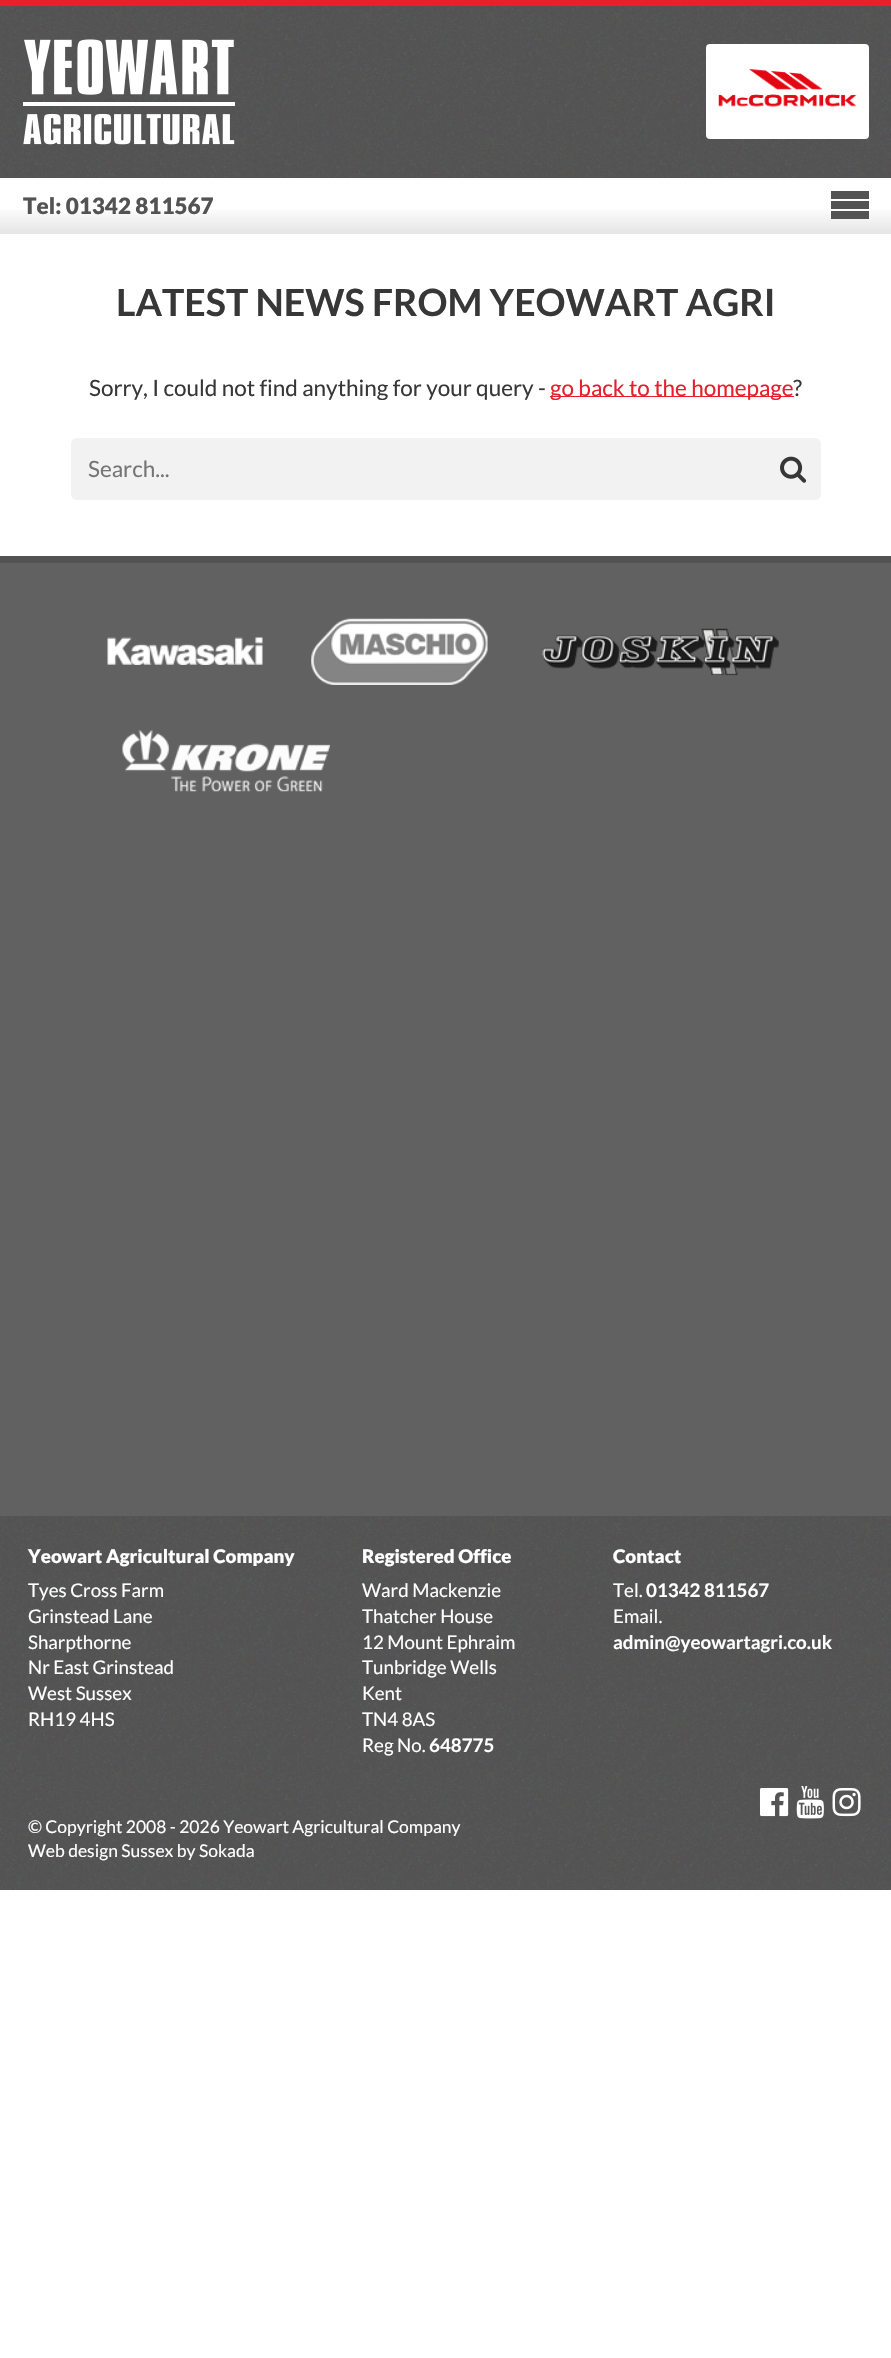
void draw(SkCanvas* canvas) {
    SkPaint paint;
    paint.setAntiAlias(true);
    auto face = [&](const char* family, int weight, float size, bool italic = false) {
        SkFontStyle style(weight, SkFontStyle::kNormal_Width,
            italic ? SkFontStyle::kItalic_Slant : SkFontStyle::kUpright_Slant);
        SkFont result(fontMgr->matchFamilyStyle(family, style), size);
        result.setSubpixel(true);
        return result;
    };
    auto write = [&](const char* s, float x, float y, const SkFont& font, SkColor color) {
        SkPaint ink(SkColor4f::FromColor(color));
        ink.setAntiAlias(true);
        canvas->drawString(s, x, y, font, ink);
    };
    auto block = [&](float x, float y, float w, float h, SkColor color) {
        SkPaint ink(SkColor4f::FromColor(color));
        ink.setAntiAlias(true);
        canvas->drawRect(SkRect::MakeXYWH(x, y, w, h), ink);
    };
    auto card = [&](float x, float y, float w, float h, float radius, SkColor color) {
        SkPaint ink(SkColor4f::FromColor(color));
        ink.setAntiAlias(true);
        canvas->drawRoundRect(SkRect::MakeXYWH(x, y, w, h), radius, radius, ink);
    };
    auto paste = [&](const char* path, float x, float y, float w, float h) {
        auto image = SkImages::DeferredFromEncodedData(SkData::MakeFromFileName(path));
        canvas->drawImageRect(image, SkRect::MakeXYWH(x, y, w, h), SkSamplingOptions());
    };
    canvas->clear(SK_ColorWHITE);
    block(0, 6, 891, 172, SkColorSetRGB(83, 83, 83));
    paste("pic1.png", 0, 6, 891, 172);
    block(0, 0, 891, 6, SkColorSetRGB(231, 31, 47));
    paste("pic2.png", 23, 39, 212, 106);
    card(706, 44, 163, 95, 4, SK_ColorWHITE);
    paste("pic3.png", 718, 69, 139, 38);
    {
        const SkColor colors[] = {SkColorSetRGB(229, 229, 229), SK_ColorWHITE};
        const float stops[] = {0, 0.5f};
        const SkPoint ends[] = {{446, 234}, {446, 178}};
        paint.setShader(SkGradientShader::MakeLinear(ends, colors, stops, 2, SkTileMode::kClamp));
        paint.setAlpha(255);
    }
    canvas->drawRect(SkRect::MakeXYWH(0, 209, 891, 25), paint);
    auto kFont1 = face("Lato", 900, 22.5f);
    write("Tel: 01342 811567", 23, 214, kFont1, SkColorSetRGB(83, 83, 83));
    block(831, 191, 38, 8, SkColorSetRGB(83, 83, 83));
    block(831, 211, 38, 8, SkColorSetRGB(83, 83, 83));
    block(831, 201, 38, 8, SkColorSetRGB(83, 83, 83));
    auto kFont2 = face("Lato", 700, 37.5f);
    write("LATEST NEWS FROM YEOWART AGRI", 116, 316, kFont2, SkColorSetRGB(55, 55, 55));
    auto kFont3 = face("Lato", 400, 22.5f);
    write("Sorry, I could not find anything for your query -", 89, 396, kFont3, SkColorSetRGB(55, 55, 55));
    block(550, 396, 244, 1, SkColorSetRGB(231, 31, 47));
    write("go back to the homepage", 550, 396, kFont3, SkColorSetRGB(231, 31, 47));
    write("?", 793, 396, kFont3, SkColorSetRGB(55, 55, 55));
    card(71, 438, 750, 62, 6, SkColorSetRGB(242, 242, 242));
    write("Search...", 88, 477, kFont3, SkColorSetRGB(117, 117, 117));
    paste("pic4.png", 780, 456, 27, 27);
    block(0, 563, 891, 953, SkColorSetRGB(97, 97, 97));
    block(0, 556, 891, 7, SkColorSetRGB(83, 83, 83));
    paste("pic5.png", 107, 637, 156, 28);
    paste("pic6.png", 311, 618, 177, 67);
    paste("pic7.png", 542, 628, 237, 48);
    paste("pic8.png", 122, 730, 208, 62);
    block(0, 1516, 891, 374, SkColorSetRGB(83, 83, 83));
    paste("pic9.png", 0, 1516, 891, 374);
    auto kFont4 = face("Lato", 900, 18.75f);
    write("Yeowart Agricultural Company", 28, 1563, kFont4, SK_ColorWHITE);
    auto kFont5 = face("Lato", 400, 18.75f);
    write("Tyes Cross Farm", 28, 1597, kFont5, SK_ColorWHITE);
    write("Grinstead Lane", 28, 1623, kFont5, SK_ColorWHITE);
    write("Sharpthorne", 28, 1649, kFont5, SK_ColorWHITE);
    write("Nr East Grinstead", 28, 1674, kFont5, SK_ColorWHITE);
    write("West Sussex", 28, 1700, kFont5, SK_ColorWHITE);
    write("RH19 4HS", 28, 1726, kFont5, SK_ColorWHITE);
    write("Registered Office", 362, 1563, kFont4, SK_ColorWHITE);
    write("Ward Mackenzie", 362, 1597, kFont5, SK_ColorWHITE);
    write("Thatcher House", 362, 1623, kFont5, SK_ColorWHITE);
    write("12 Mount Ephraim", 362, 1649, kFont5, SK_ColorWHITE);
    write("Tunbridge Wells", 362, 1674, kFont5, SK_ColorWHITE);
    write("Kent", 362, 1700, kFont5, SK_ColorWHITE);
    write("TN4 8AS", 362, 1726, kFont5, SK_ColorWHITE);
    write("Reg No.", 362, 1752, kFont5, SK_ColorWHITE);
    auto kFont6 = face("Lato", 700, 18.75f);
    write("648775", 429, 1752, kFont6, SK_ColorWHITE);
    write("Contact", 613, 1563, kFont4, SK_ColorWHITE);
    write("Tel.", 613, 1597, kFont5, SK_ColorWHITE);
    write("01342 811567", 646, 1597, kFont6, SK_ColorWHITE);
    write("Email.", 613, 1623, kFont5, SK_ColorWHITE);
    write("admin@yeowartagri.co.uk", 613, 1649, kFont6, SK_ColorWHITE);
    paste("pic10.png", 760, 1788, 29, 29);
    paste("pic11.png", 796, 1786, 28, 33);
    paste("pic12.png", 832, 1788, 29, 29);
    auto kFont7 = face("Lato", 400, 17.5f);
    write("© Copyright 2008 - 2026 Yeowart Agricultural Company", 28, 1833, kFont7, SK_ColorWHITE);
    write("Web design Sussex by Sokada", 28, 1857, kFont7, SK_ColorWHITE);
}
